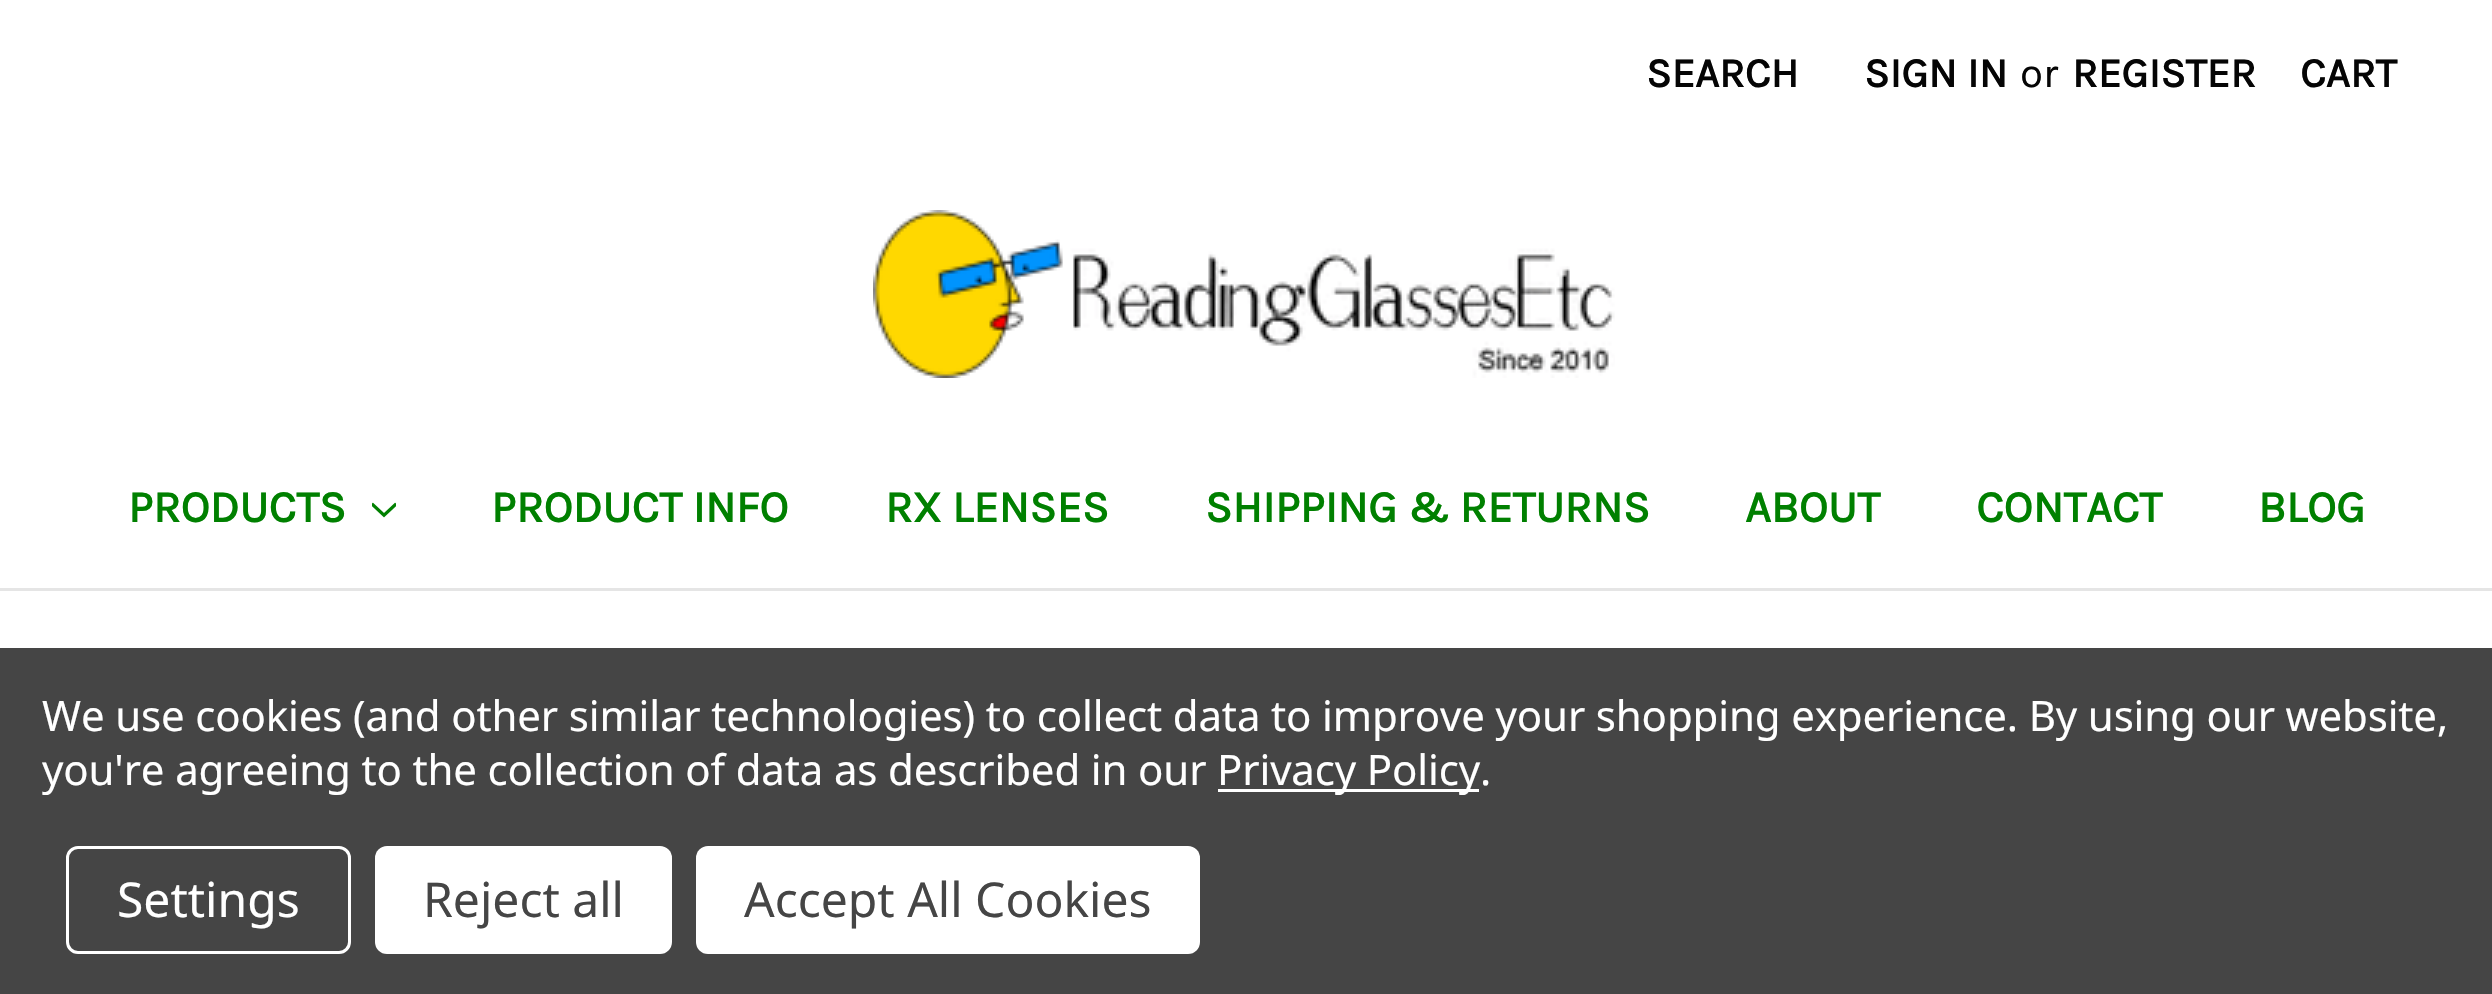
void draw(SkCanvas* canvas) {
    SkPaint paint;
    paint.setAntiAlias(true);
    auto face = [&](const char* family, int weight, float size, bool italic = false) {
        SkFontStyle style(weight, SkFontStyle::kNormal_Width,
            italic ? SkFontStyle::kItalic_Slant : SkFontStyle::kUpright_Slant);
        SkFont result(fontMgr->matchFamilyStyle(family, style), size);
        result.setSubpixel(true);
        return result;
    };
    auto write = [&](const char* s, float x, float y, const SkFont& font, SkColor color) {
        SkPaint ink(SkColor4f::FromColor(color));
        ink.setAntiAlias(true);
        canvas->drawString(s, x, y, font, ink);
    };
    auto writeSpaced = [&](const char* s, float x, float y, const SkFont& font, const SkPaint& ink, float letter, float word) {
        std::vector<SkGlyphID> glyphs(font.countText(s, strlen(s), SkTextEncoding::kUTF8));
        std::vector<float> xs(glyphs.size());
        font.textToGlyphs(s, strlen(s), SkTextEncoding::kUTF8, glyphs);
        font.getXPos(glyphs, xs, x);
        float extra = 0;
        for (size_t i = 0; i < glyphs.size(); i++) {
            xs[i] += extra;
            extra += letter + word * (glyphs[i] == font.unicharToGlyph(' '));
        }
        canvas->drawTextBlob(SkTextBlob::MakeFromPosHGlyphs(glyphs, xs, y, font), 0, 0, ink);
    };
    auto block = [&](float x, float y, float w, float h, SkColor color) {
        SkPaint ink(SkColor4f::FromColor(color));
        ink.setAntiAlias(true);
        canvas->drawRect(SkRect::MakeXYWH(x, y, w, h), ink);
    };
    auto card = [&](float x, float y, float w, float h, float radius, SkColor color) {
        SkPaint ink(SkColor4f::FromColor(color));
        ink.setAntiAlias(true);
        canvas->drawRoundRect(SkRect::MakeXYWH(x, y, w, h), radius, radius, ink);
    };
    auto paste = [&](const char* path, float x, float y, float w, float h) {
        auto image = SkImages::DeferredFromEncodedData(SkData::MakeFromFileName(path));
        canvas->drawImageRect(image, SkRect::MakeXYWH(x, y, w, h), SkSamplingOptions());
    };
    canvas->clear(SK_ColorWHITE);
    block(0, 588, 2492, 3, SkColorSetRGB(229, 229, 229));
    auto kFont1 = face("Karla", 700, 42);
    write("SEARCH", 1646, 87, kFont1, SkColorSetRGB(5, 5, 5));
    write("SIGN IN", 1864, 87, kFont1, SkColorSetRGB(5, 5, 5));
    auto kFont2 = face("Karla", 400, 42);
    write("or", 2020, 87, kFont2, SkColorSetRGB(5, 5, 5));
    write("REGISTER", 2072, 87, kFont1, SkColorSetRGB(5, 5, 5));
    write("CART", 2300, 87, kFont1, SkColorSetRGB(5, 5, 5));
    paste("pic1.png", 873, 210, 742, 168);
    auto kFont3 = face("Karla", 700, 45);
    write("PRODUCTS", 128, 522, kFont3, SkColorSetRGB(0, 128, 0));
    paste("pic2.png", 372, 502, 24, 16);
    write("PRODUCT INFO", 491, 522, kFont3, SkColorSetRGB(0, 128, 0));
    write("RX LENSES", 885, 522, kFont3, SkColorSetRGB(0, 128, 0));
    write("SHIPPING & RETURNS", 1205, 522, kFont3, SkColorSetRGB(0, 128, 0));
    write("ABOUT", 1745, 522, kFont3, SkColorSetRGB(0, 128, 0));
    write("CONTACT", 1976, 522, kFont3, SkColorSetRGB(0, 128, 0));
    write("BLOG", 2258, 522, kFont3, SkColorSetRGB(0, 128, 0));
    block(0, 648, 2492, 346, SkColorSetRGB(69, 69, 69));
    auto kFont4 = face("Noto Sans", 400, 42);
    paint.setColor(SK_ColorWHITE);
    writeSpaced("We use cookies (and other similar technologies) to collect data to improve your shopping experience. By using our website,", 42, 731, kFont4, paint, -0.15f, 0);
    writeSpaced("you're agreeing to the collection of data as described in our", 42, 785, kFont4, paint, -0.15f, 0);
    block(1218, 789, 261, 3, SK_ColorWHITE);
    writeSpaced("Privacy Policy.", 1217, 785, kFont4, paint, -0.15f, 0);
    paint.setStyle(SkPaint::kStroke_Style);
    paint.setStrokeWidth(3);
    canvas->drawRoundRect(SkRect::MakeXYWH(67.5f, 847.5f, 282, 105), 10.5f, 10.5f, paint);
    auto kFont5 = face("Noto Sans", 400, 48);
    write("Settings", 117, 917, kFont5, SK_ColorWHITE);
    card(375, 846, 297, 108, 12, SK_ColorWHITE);
    write("Reject all", 423, 917, kFont5, SkColorSetRGB(69, 69, 69));
    card(696, 846, 504, 108, 12, SK_ColorWHITE);
    write("Accept All Cookies", 744, 917, kFont5, SkColorSetRGB(69, 69, 69));
}
